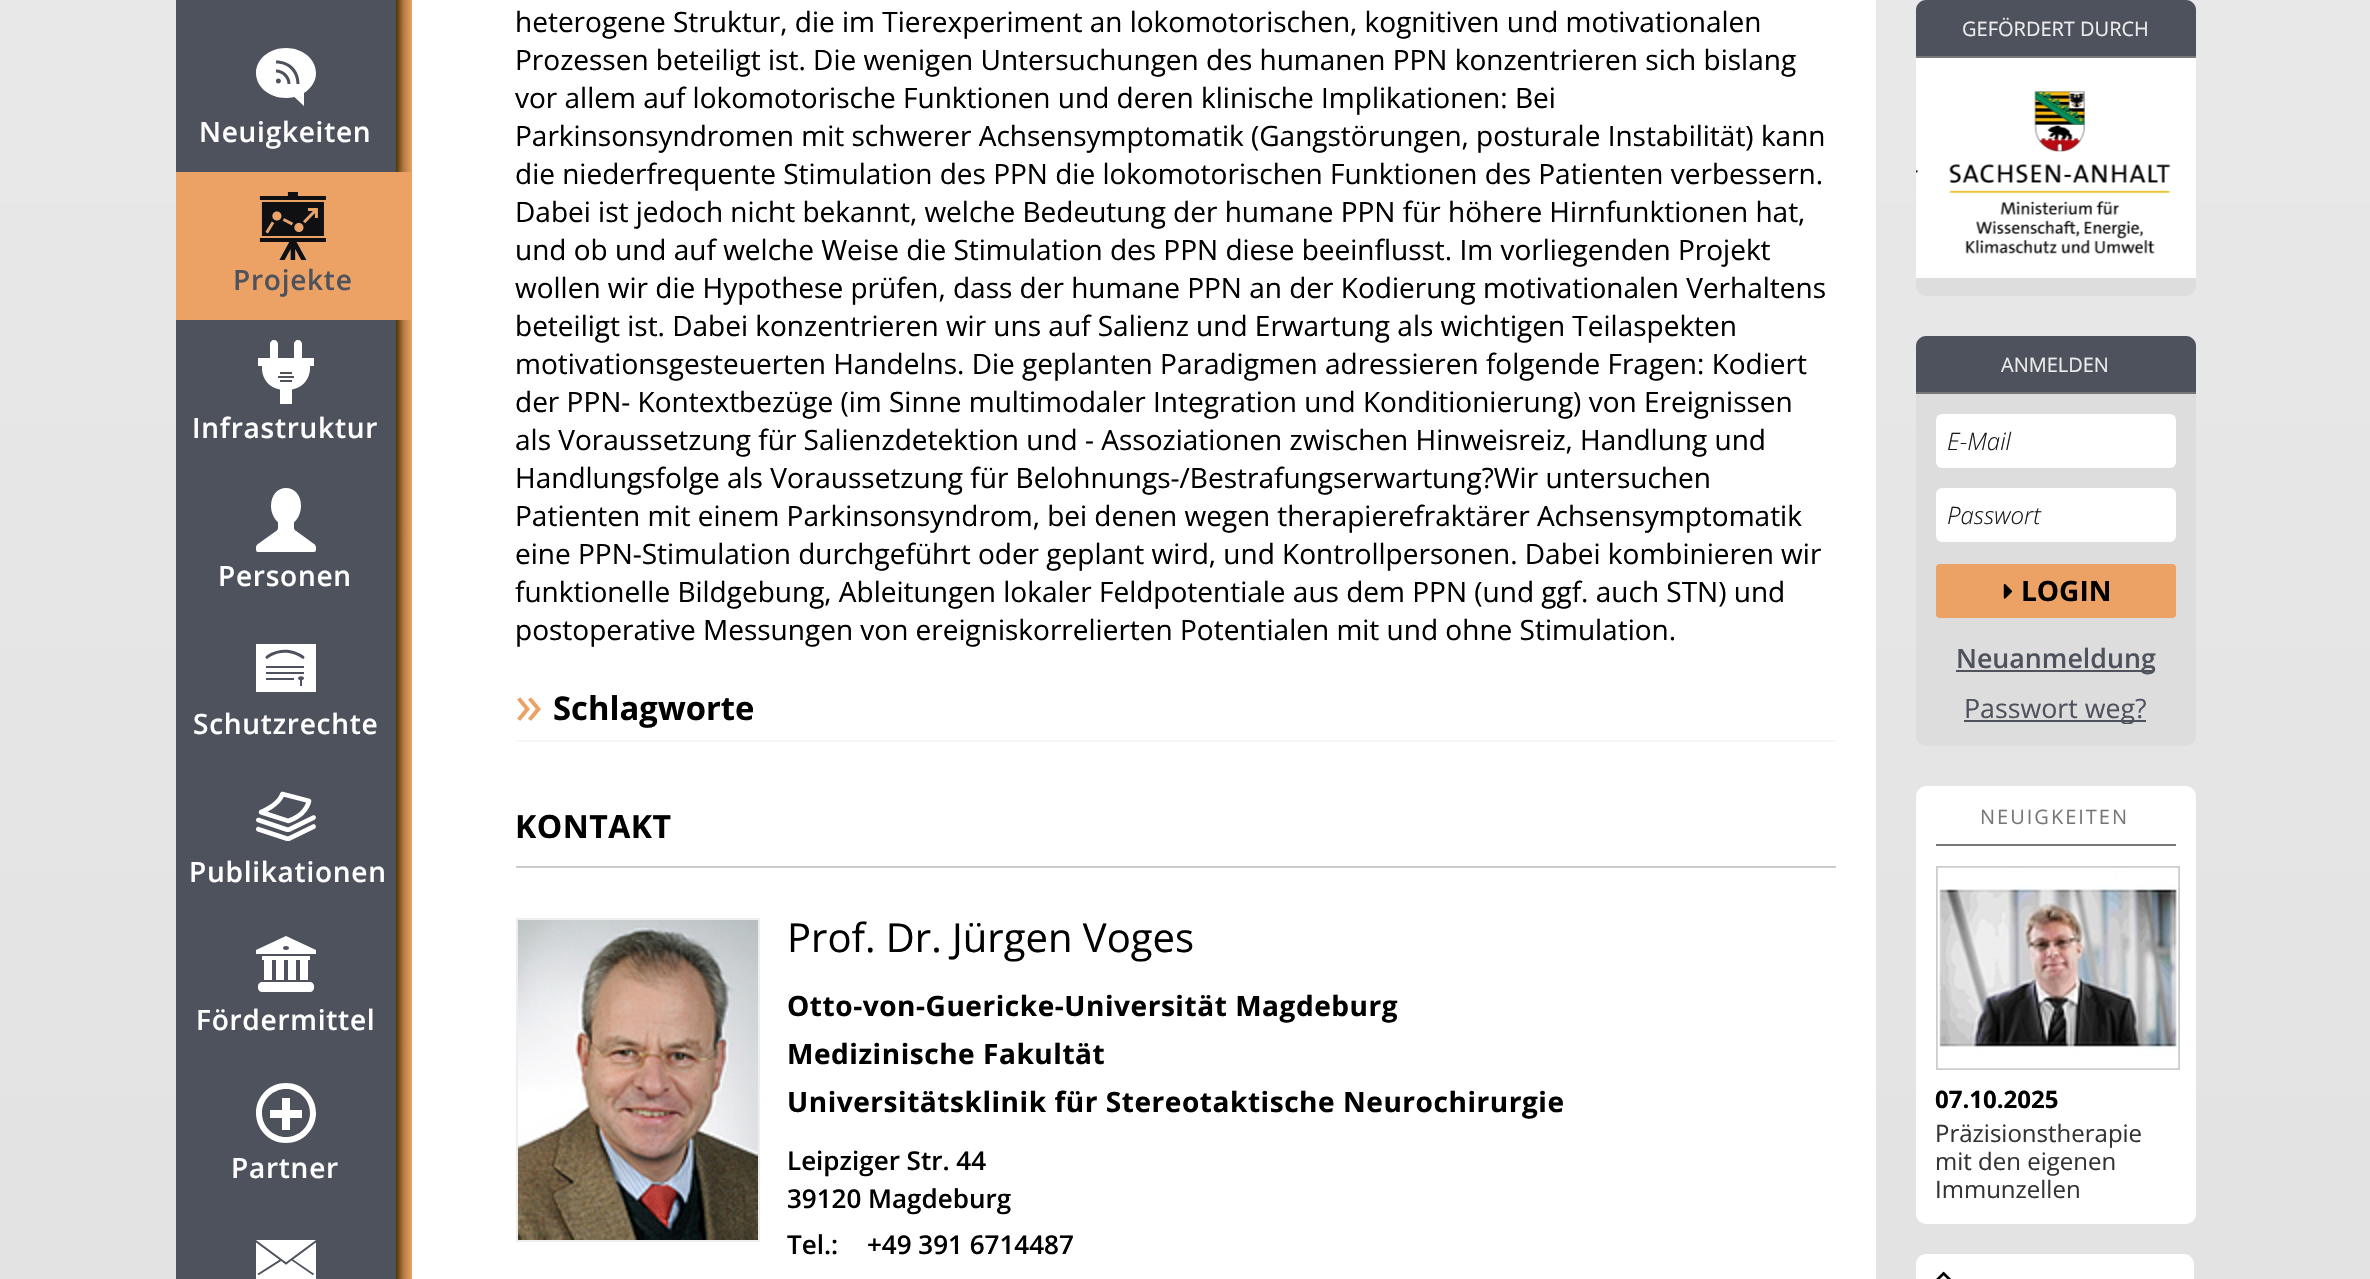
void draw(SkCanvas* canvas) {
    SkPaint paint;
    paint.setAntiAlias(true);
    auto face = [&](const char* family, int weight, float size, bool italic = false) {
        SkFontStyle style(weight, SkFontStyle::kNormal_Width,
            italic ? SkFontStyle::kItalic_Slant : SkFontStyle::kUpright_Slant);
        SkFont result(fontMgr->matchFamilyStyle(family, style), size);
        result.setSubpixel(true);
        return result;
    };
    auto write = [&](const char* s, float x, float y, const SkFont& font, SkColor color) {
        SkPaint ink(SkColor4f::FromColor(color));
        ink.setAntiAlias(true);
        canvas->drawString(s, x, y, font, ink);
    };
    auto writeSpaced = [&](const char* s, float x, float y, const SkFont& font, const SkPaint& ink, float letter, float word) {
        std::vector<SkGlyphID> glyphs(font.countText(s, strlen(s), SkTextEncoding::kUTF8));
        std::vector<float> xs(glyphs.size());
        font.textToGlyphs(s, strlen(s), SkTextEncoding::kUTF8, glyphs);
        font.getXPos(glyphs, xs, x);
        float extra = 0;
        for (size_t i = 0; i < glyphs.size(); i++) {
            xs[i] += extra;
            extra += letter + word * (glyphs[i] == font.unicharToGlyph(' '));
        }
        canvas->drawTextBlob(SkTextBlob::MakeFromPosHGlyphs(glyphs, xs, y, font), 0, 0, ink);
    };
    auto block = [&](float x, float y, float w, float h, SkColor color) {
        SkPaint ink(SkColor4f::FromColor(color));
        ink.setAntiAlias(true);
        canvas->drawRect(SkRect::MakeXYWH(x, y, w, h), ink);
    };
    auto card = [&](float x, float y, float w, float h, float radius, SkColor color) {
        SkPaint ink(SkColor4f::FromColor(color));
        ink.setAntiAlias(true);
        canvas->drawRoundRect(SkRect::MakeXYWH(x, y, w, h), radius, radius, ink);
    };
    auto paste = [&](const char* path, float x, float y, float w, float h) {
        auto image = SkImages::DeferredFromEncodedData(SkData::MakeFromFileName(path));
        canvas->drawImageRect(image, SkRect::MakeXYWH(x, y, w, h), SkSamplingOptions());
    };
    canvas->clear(SK_ColorWHITE);
    {
        const SkColor colors[] = {SkColorSetRGB(238, 238, 238), SkColorSetRGB(221, 221, 221)};
        const float stops[] = {0, 1};
        const SkPoint ends[] = {{1185, -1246}, {1185, 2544}};
        paint.setShader(SkGradientShader::MakeLinear(ends, colors, stops, 2, SkTileMode::kClamp));
        paint.setAlpha(255);
    }
    canvas->drawRect(SkRect::MakeXYWH(0, 0, 2370, 1279), paint);
    block(176, 0, 220, 1279, SkColorSetRGB(78, 82, 93));
    paste("pic1.png", 396, 0, 16, 1279);
    paste("pic2.png", 256, 48, 60, 58);
    auto kFont1 = face("Open Sans", 600, 28);
    paint.setShader(nullptr);
    paint.setColor(SK_ColorWHITE);
    writeSpaced("Neuigkeiten", 199, 142, kFont1, paint, 0.75f, 0);
    block(176, 172, 236, 148, SkColorSetRGB(236, 162, 101));
    paste("pic3.png", 259, 192, 67, 68);
    paint.setColor(SkColorSetRGB(78, 82, 93));
    writeSpaced("Projekte", 233, 290, kFont1, paint, 0.75f, 0);
    paste("pic4.png", 258, 340, 56, 64);
    paint.setColor(SK_ColorWHITE);
    writeSpaced("Infrastruktur", 192, 438, kFont1, paint, 0.75f, 0);
    paste("pic5.png", 256, 488, 60, 64);
    writeSpaced("Personen", 218, 586, kFont1, paint, 0.75f, 0);
    paste("pic6.png", 256, 644, 60, 48);
    writeSpaced("Schutzrechte", 193, 734, kFont1, paint, 0.75f, 0);
    paste("pic7.png", 256, 791, 60, 50);
    writeSpaced("Publikationen", 189, 882, kFont1, paint, 0.75f, 0);
    paste("pic8.png", 256, 936, 60, 56);
    writeSpaced("Fördermittel", 196, 1030, kFont1, paint, 0.75f, 0);
    paste("pic9.png", 256, 1083, 60, 60);
    writeSpaced("Partner", 231, 1178, kFont1, paint, 0.75f, 0);
    paste("pic10.png", 256, 1240, 60, 39);
    block(412, 0, 1464, 1279, SK_ColorWHITE);
    auto kFont2 = face("Open Sans", 400, 28);
    write("heterogene Struktur, die im Tierexperiment an lokomotorischen, kognitiven und motivationalen", 515, 32, kFont2, SK_ColorBLACK);
    write("Prozessen beteiligt ist. Die wenigen Untersuchungen des humanen PPN konzentrieren sich bislang", 515, 70, kFont2, SK_ColorBLACK);
    write("vor allem auf lokomotorische Funktionen und deren klinische Implikationen: Bei", 515, 108, kFont2, SK_ColorBLACK);
    write("Parkinsonsyndromen mit schwerer Achsensymptomatik (Gangstörungen, posturale Instabilität) kann", 515, 146, kFont2, SK_ColorBLACK);
    write("die niederfrequente Stimulation des PPN die lokomotorischen Funktionen des Patienten verbessern.", 515, 184, kFont2, SK_ColorBLACK);
    write("Dabei ist jedoch nicht bekannt, welche Bedeutung der humane PPN für höhere Hirnfunktionen hat,", 515, 222, kFont2, SK_ColorBLACK);
    write("und ob und auf welche Weise die Stimulation des PPN diese beeinflusst. Im vorliegenden Projekt", 515, 260, kFont2, SK_ColorBLACK);
    write("wollen wir die Hypothese prüfen, dass der humane PPN an der Kodierung motivationalen Verhaltens", 515, 298, kFont2, SK_ColorBLACK);
    write("beteiligt ist. Dabei konzentrieren wir uns auf Salienz und Erwartung als wichtigen Teilaspekten", 515, 336, kFont2, SK_ColorBLACK);
    write("motivationsgesteuerten Handelns. Die geplanten Paradigmen adressieren folgende Fragen: Kodiert", 515, 374, kFont2, SK_ColorBLACK);
    write("der PPN- Kontextbezüge (im Sinne multimodaler Integration und Konditionierung) von Ereignissen", 515, 412, kFont2, SK_ColorBLACK);
    write("als Voraussetzung für Salienzdetektion und - Assoziationen zwischen Hinweisreiz, Handlung und", 515, 450, kFont2, SK_ColorBLACK);
    write("Handlungsfolge als Voraussetzung für Belohnungs-/Bestrafungserwartung?Wir untersuchen", 515, 488, kFont2, SK_ColorBLACK);
    write("Patienten mit einem Parkinsonsyndrom, bei denen wegen therapierefraktärer Achsensymptomatik", 515, 526, kFont2, SK_ColorBLACK);
    write("eine PPN-Stimulation durchgeführt oder geplant wird, und Kontrollpersonen. Dabei kombinieren wir", 515, 564, kFont2, SK_ColorBLACK);
    write("funktionelle Bildgebung, Ableitungen lokaler Feldpotentiale aus dem PPN (und ggf. auch STN) und", 515, 602, kFont2, SK_ColorBLACK);
    write("postoperative Messungen von ereigniskorrelierten Potentialen mit und ohne Stimulation.", 515, 640, kFont2, SK_ColorBLACK);
    block(516, 740, 1320, 2, SkColorSetRGB(246, 246, 246));
    auto kFont3 = face("Open Sans", 400, 56);
    write("»", 515, 724, kFont3, SkColorSetRGB(236, 162, 101));
    auto kFont4 = face("Open Sans", 700, 32.75f);
    write("Schlagworte", 553, 720, kFont4, SK_ColorBLACK);
    block(516, 866, 1320, 2, SkColorSetRGB(204, 204, 204));
    auto kFont5 = face("Open Sans", 700, 32);
    paint.setColor(SK_ColorBLACK);
    writeSpaced("KONTAKT", 515, 838, kFont5, paint, 0.5f, 0);
    paint.setStyle(SkPaint::kStroke_Style);
    paint.setStrokeWidth(2);
    paint.setColor(SkColorSetRGB(238, 238, 238));
    canvas->drawRect(SkRect::MakeXYWH(517, 919, 242, 322), paint);
    paste("pic11.png", 518, 920, 240, 320);
    auto kFont6 = face("Open Sans", 400, 40);
    write("Prof. Dr. Jürgen Voges", 787, 952, kFont6, SK_ColorBLACK);
    auto kFont7 = face("Open Sans", 700, 28);
    paint.setStyle(SkPaint::kFill_Style);
    paint.setColor(SK_ColorBLACK);
    writeSpaced("Otto-von-Guericke-Universität Magdeburg", 787, 1016, kFont7, paint, 0.55f, 0);
    writeSpaced("Medizinische Fakultät", 787, 1064, kFont7, paint, 0.55f, 0);
    writeSpaced("Universitätsklinik für Stereotaktische Neurochirurgie", 787, 1112, kFont7, paint, 0.55f, 0);
    auto kFont8 = face("Open Sans", 600, 26);
    write("Leipziger Str. 44", 787, 1170, kFont8, SK_ColorBLACK);
    write("39120 Magdeburg", 787, 1208, kFont8, SK_ColorBLACK);
    write("Tel.:", 787, 1254, kFont8, SK_ColorBLACK);
    write("+49 391 6714487", 867, 1254, kFont8, SK_ColorBLACK);
    card(1916, 0, 280, 296, 10, SkColorSetRGB(221, 221, 221));
    paint.setColor(SkColorSetRGB(78, 82, 93));
    canvas->drawPath(SkPathBuilder().moveTo(1926, 0).lineTo(2186, 0).cubicTo(2191.5f, 0, 2196, 4.5f, 2196, 10).lineTo(2196, 58).lineTo(1916, 58).lineTo(1916, 10).cubicTo(1916, 4.5f, 1920.5f, 0, 1926, 0).close().detach(), paint);
    block(1916, 56, 280, 2, SkColorSetRGB(119, 119, 119));
    auto kFont9 = face("Open Sans", 400, 20);
    write("GEFÖRDERT DURCH", 1962, 36, kFont9, SkColorSetRGB(236, 236, 236));
    paste("pic12.png", 1916, 58, 280, 220);
    card(1916, 336, 280, 410, 10, SkColorSetRGB(221, 221, 221));
    canvas->drawPath(SkPathBuilder().moveTo(1926, 336).lineTo(2186, 336).cubicTo(2191.5f, 336, 2196, 340.5f, 2196, 346).lineTo(2196, 394).lineTo(1916, 394).lineTo(1916, 346).cubicTo(1916, 340.5f, 1920.5f, 336, 1926, 336).close().detach(), paint);
    block(1916, 392, 280, 2, SkColorSetRGB(119, 119, 119));
    write("ANMELDEN", 2001, 372, kFont9, SkColorSetRGB(236, 236, 236));
    card(1936, 414, 240, 54, 6, SK_ColorWHITE);
    auto kFont10 = face("Open Sans", 300, 24, true);
    write("E-Mail", 1947, 450, kFont10, SkColorSetRGB(26, 26, 26));
    card(1936, 488, 240, 54, 6, SK_ColorWHITE);
    write("Passwort", 1947, 524, kFont10, SkColorSetRGB(26, 26, 26));
    card(1936, 564, 240, 54, 4, SkColorSetRGB(236, 162, 101));
    paste("pic13.png", 2003, 584, 10, 15);
    write("LOGIN", 2021, 601, kFont7, SK_ColorBLACK);
    block(1956, 670, 198, 2, SkColorSetRGB(78, 82, 93));
    auto kFont11 = face("Open Sans", 600, 26.75f);
    write("Neuanmeldung", 1956, 668, kFont11, SkColorSetRGB(78, 82, 93));
    block(1964, 720, 182, 2, SkColorSetRGB(78, 82, 93));
    canvas->save();
    canvas->clipRect(SkRect::MakeXYWH(1936, 694, 240, 30));
    auto kFont12 = face("Open Sans", 400, 26.75f);
    write("Passwort weg?", 1964, 718, kFont12, SkColorSetRGB(78, 82, 93));
    canvas->restore();
    card(1916, 786, 280, 438, 10, SK_ColorWHITE);
    block(1936, 844, 240, 2, SkColorSetRGB(119, 119, 119));
    paint.setColor(SkColorSetRGB(119, 119, 119));
    writeSpaced("NEUIGKEITEN", 1980, 824, kFont9, paint, 2, 0);
    paint.setStyle(SkPaint::kStroke_Style);
    paint.setColor(SkColorSetRGB(204, 204, 204));
    canvas->drawRect(SkRect::MakeXYWH(1937, 867, 242, 202), paint);
    paste("pic14.png", 1937, 867, 242, 202);
    auto kFont13 = face("Open Sans", 700, 24);
    write("07.10.2025", 1935, 1108, kFont13, SK_ColorBLACK);
    auto kFont14 = face("Open Sans", 400, 24);
    write("Präzisionstherapie", 1935, 1142, kFont14, SkColorSetRGB(51, 51, 51));
    write("mit den eigenen", 1935, 1170, kFont14, SkColorSetRGB(51, 51, 51));
    write("Immunzellen", 1935, 1198, kFont14, SkColorSetRGB(51, 51, 51));
    paint.setStyle(SkPaint::kFill_Style);
    paint.setColor(SK_ColorWHITE);
    canvas->drawPath(SkPathBuilder().moveTo(1926, 1254).lineTo(1970, 1254).lineTo(1970, 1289).lineTo(1926, 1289).cubicTo(1920.5f, 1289, 1916, 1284.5f, 1916, 1279).lineTo(1916, 1264).cubicTo(1916, 1258.5f, 1920.5f, 1254, 1926, 1254).close().detach(), paint);
    canvas->drawPath(SkPathBuilder().moveTo(1970, 1254).lineTo(2184, 1254).cubicTo(2189.5f, 1254, 2194, 1258.5f, 2194, 1264).lineTo(2194, 1279).cubicTo(2194, 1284.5f, 2189.5f, 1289, 2184, 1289).lineTo(1970, 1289).close().detach(), paint);
    paste("pic15.png", 1936, 1271, 15, 8);
}
